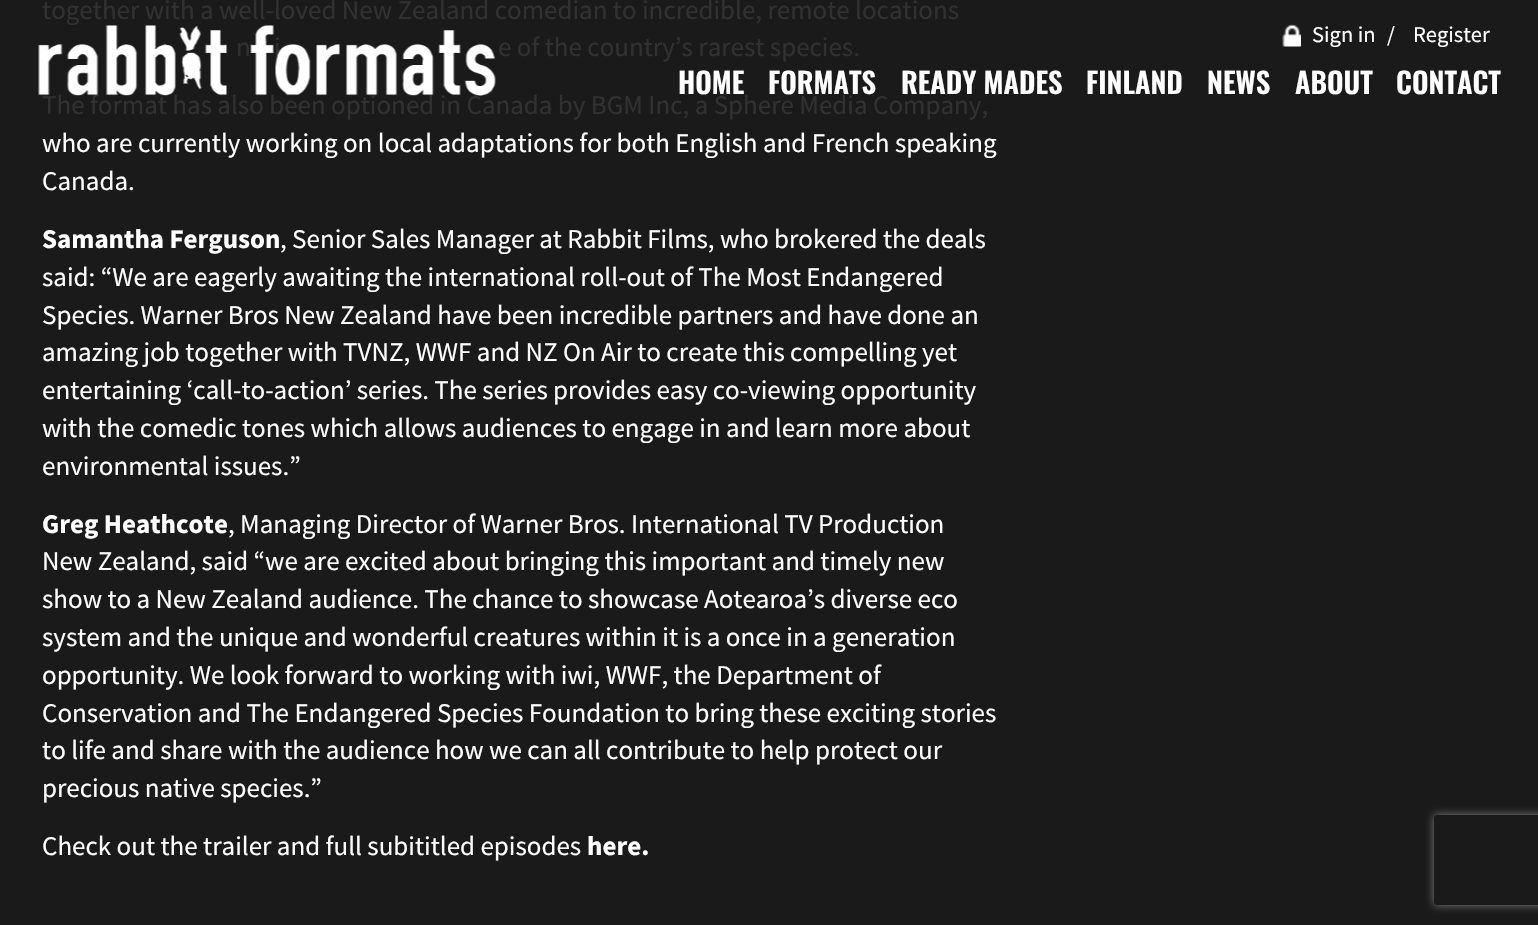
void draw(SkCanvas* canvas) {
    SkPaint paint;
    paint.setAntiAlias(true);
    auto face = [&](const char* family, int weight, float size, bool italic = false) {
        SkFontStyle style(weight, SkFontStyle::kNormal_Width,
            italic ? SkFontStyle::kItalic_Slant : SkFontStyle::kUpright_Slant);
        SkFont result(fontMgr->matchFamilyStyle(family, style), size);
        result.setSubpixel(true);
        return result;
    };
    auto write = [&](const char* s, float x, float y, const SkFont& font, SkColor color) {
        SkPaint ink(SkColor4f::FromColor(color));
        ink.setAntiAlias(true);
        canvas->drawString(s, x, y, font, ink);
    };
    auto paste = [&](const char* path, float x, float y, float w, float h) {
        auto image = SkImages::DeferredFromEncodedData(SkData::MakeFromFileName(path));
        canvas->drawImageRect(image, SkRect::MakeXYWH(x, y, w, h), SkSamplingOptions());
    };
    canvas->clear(SkColorSetRGB(26, 26, 26));
    auto kFont1 = face("Source Sans Pro", 400, 27);
    write("together with a well-loved New Zealand comedian to incredible, remote locations", 42, 19, kFont1, SkColorSetRGB(49, 49, 49));
    write("n", 236, 56, kFont1, SkColorSetRGB(49, 49, 49));
    write("i", 274, 56, kFont1, SkColorSetRGB(49, 49, 49));
    write("e of the country’s rarest species.", 498, 56, kFont1, SkColorSetRGB(49, 49, 49));
    write("The format has also been optioned in Canada by BGM Inc, a Sphere Media Company,", 42, 114, kFont1, SkColorSetRGB(49, 49, 49));
    write("who are currently working on local adaptations for both English and French speaking", 42, 152, kFont1, SK_ColorWHITE);
    write("Canada.", 42, 190, kFont1, SK_ColorWHITE);
    auto kFont2 = face("Source Sans Pro", 700, 27);
    write("Samantha Ferguson", 42, 248, kFont2, SK_ColorWHITE);
    write(", Senior Sales Manager at Rabbit Films, who brokered the deals", 280, 248, kFont1, SK_ColorWHITE);
    write("said: “We are eagerly awaiting the international roll-out of The Most Endangered", 42, 286, kFont1, SK_ColorWHITE);
    write("Species. Warner Bros New Zealand have been incredible partners and have done an", 42, 324, kFont1, SK_ColorWHITE);
    write("amazing job together with TVNZ, WWF and NZ On Air to create this compelling yet", 42, 361, kFont1, SK_ColorWHITE);
    write("entertaining ‘call-to-action’ series. The series provides easy co-viewing opportunity", 42, 399, kFont1, SK_ColorWHITE);
    write("with the comedic tones which allows audiences to engage in and learn more about", 42, 437, kFont1, SK_ColorWHITE);
    write("environmental issues.”", 42, 475, kFont1, SK_ColorWHITE);
    write("Greg Heathcote", 42, 533, kFont2, SK_ColorWHITE);
    write(", Managing Director of Warner Bros. International TV Production", 228, 533, kFont1, SK_ColorWHITE);
    write("New Zealand, said “we are excited about bringing this important and timely new", 42, 570, kFont1, SK_ColorWHITE);
    write("show to a New Zealand audience. The chance to showcase Aotearoa’s diverse eco", 42, 608, kFont1, SK_ColorWHITE);
    write("system and the unique and wonderful creatures within it is a once in a generation", 42, 646, kFont1, SK_ColorWHITE);
    write("opportunity. We look forward to working with iwi, WWF, the Department of", 42, 684, kFont1, SK_ColorWHITE);
    write("Conservation and The Endangered Species Foundation to bring these exciting stories", 42, 722, kFont1, SK_ColorWHITE);
    write("to life and share with the audience how we can all contribute to help protect our", 42, 759, kFont1, SK_ColorWHITE);
    write("precious native species.”", 42, 797, kFont1, SK_ColorWHITE);
    write("Check out the trailer and full subititled episodes", 42, 855, kFont1, SK_ColorWHITE);
    write("here.", 587, 855, kFont2, SK_ColorWHITE);
    paste("pic1.png", 38, 25, 458, 71);
    paste("pic2.png", 1282, 24, 19, 23);
    auto kFont3 = face("Source Sans Pro", 400, 22.5f);
    write("Sign in", 1312, 42, kFont3, SK_ColorWHITE);
    write("/", 1387, 42, kFont3, SK_ColorWHITE);
    write("Register", 1413, 42, kFont3, SK_ColorWHITE);
    auto kFont4 = face("Oswald", 600, 28.75f);
    write("HOME", 678, 94, kFont4, SK_ColorWHITE);
    write("FORMATS", 768, 94, kFont4, SK_ColorWHITE);
    write("READY MADES", 901, 94, kFont4, SK_ColorWHITE);
    write("FINLAND", 1086, 94, kFont4, SK_ColorWHITE);
    write("NEWS", 1207, 94, kFont4, SK_ColorWHITE);
    write("ABOUT", 1295, 94, kFont4, SK_ColorWHITE);
    write("CONTACT", 1396, 94, kFont4, SK_ColorWHITE);
    canvas->save();
    canvas->clipPath(SkPathBuilder(SkPathFillType::kEvenOdd).moveTo(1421, 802).lineTo(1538, 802).lineTo(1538, 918).lineTo(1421, 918).close().moveTo(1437, 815).lineTo(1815, 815).cubicTo(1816.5f, 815, 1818, 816.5f, 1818, 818).lineTo(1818, 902).cubicTo(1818, 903.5f, 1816.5f, 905, 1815, 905).lineTo(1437, 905).cubicTo(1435.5f, 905, 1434, 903.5f, 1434, 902).lineTo(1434, 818).cubicTo(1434, 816.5f, 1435.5f, 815, 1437, 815).close().detach(), true);
    paint.setColor(SkColorSetRGB(128, 128, 128));
    paint.setMaskFilter(SkMaskFilter::MakeBlur(kNormal_SkBlurStyle, 4));
    canvas->drawRoundRect(SkRect::MakeXYWH(1434, 815, 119, 90), 3, 3, paint);
    paint.setMaskFilter(nullptr);
    canvas->restore();
}
